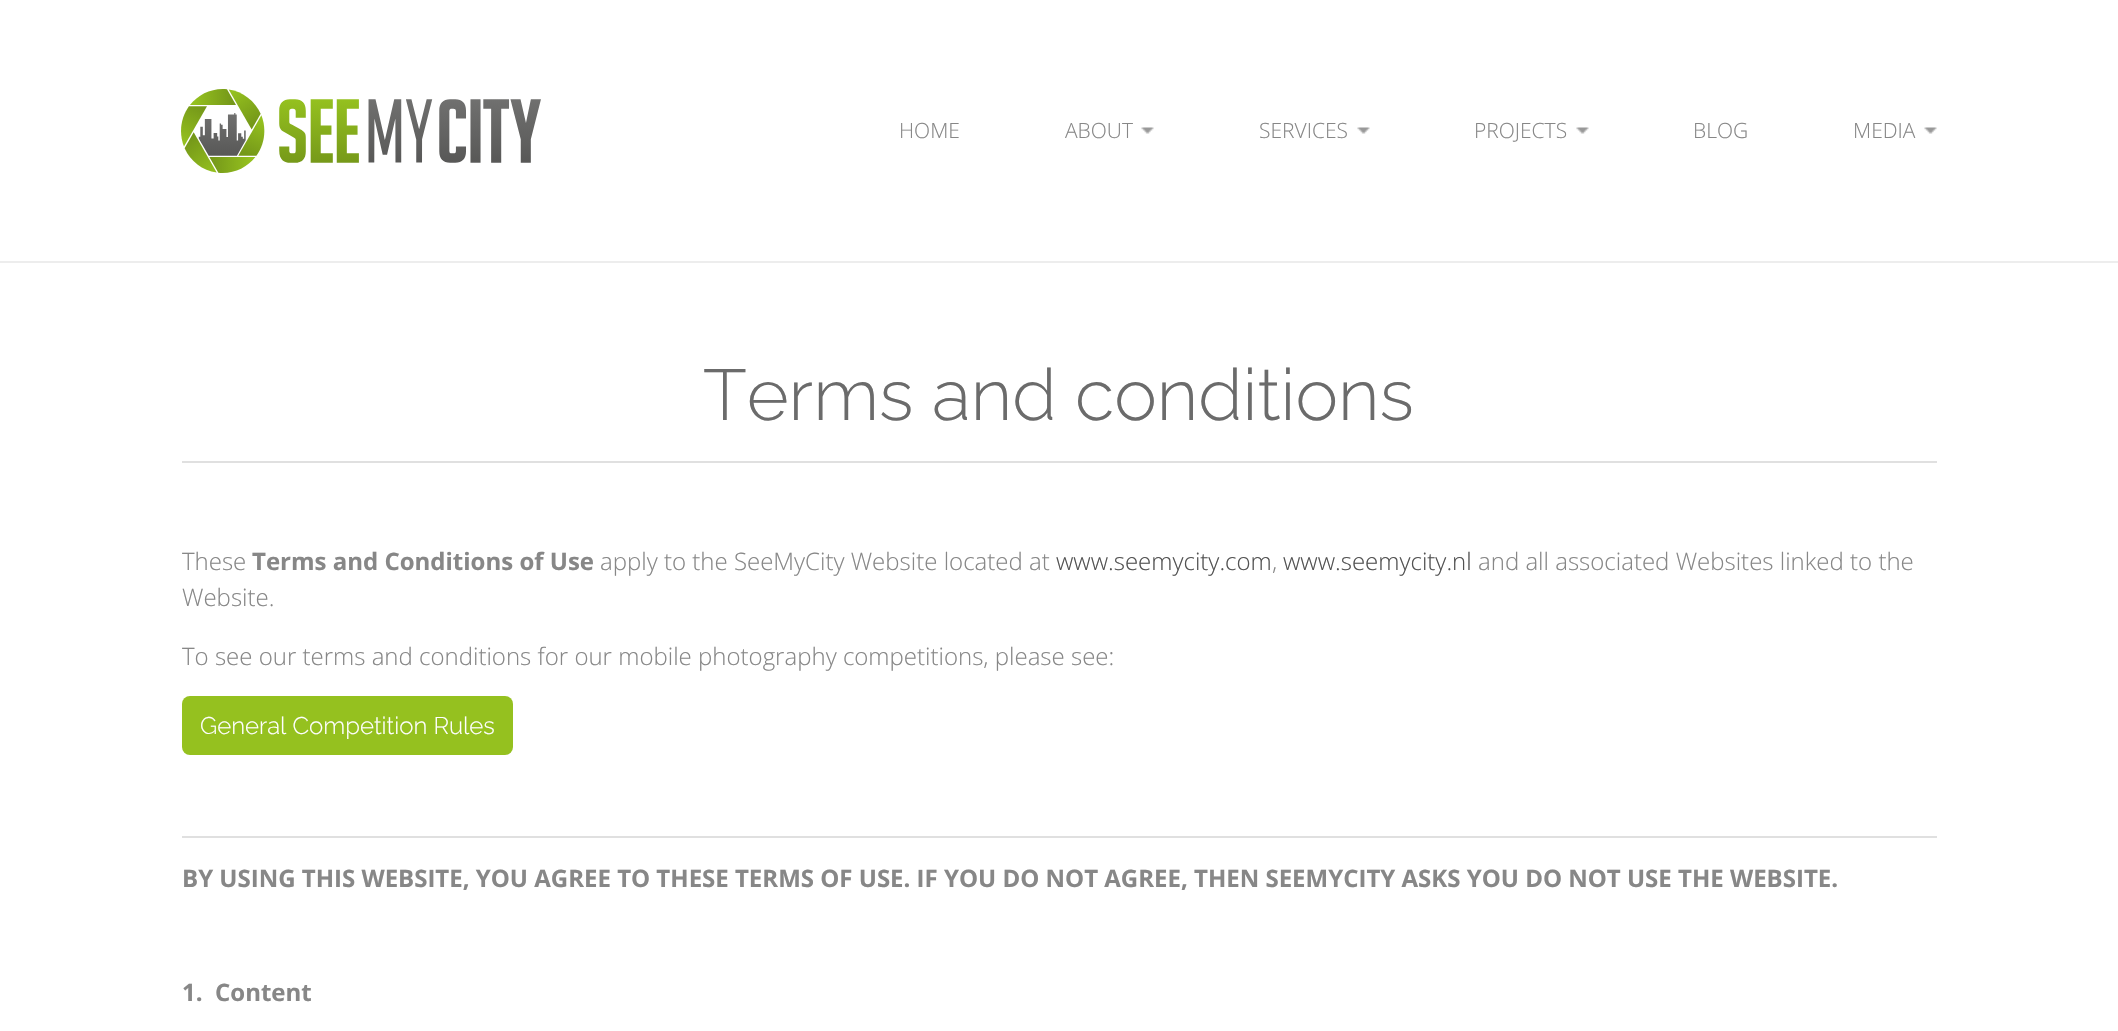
void draw(SkCanvas* canvas) {
    SkPaint paint;
    paint.setAntiAlias(true);
    auto face = [&](const char* family, int weight, float size, bool italic = false) {
        SkFontStyle style(weight, SkFontStyle::kNormal_Width,
            italic ? SkFontStyle::kItalic_Slant : SkFontStyle::kUpright_Slant);
        SkFont result(fontMgr->matchFamilyStyle(family, style), size);
        result.setSubpixel(true);
        return result;
    };
    auto write = [&](const char* s, float x, float y, const SkFont& font, SkColor color) {
        SkPaint ink(SkColor4f::FromColor(color));
        ink.setAntiAlias(true);
        canvas->drawString(s, x, y, font, ink);
    };
    auto block = [&](float x, float y, float w, float h, SkColor color) {
        SkPaint ink(SkColor4f::FromColor(color));
        ink.setAntiAlias(true);
        canvas->drawRect(SkRect::MakeXYWH(x, y, w, h), ink);
    };
    auto card = [&](float x, float y, float w, float h, float radius, SkColor color) {
        SkPaint ink(SkColor4f::FromColor(color));
        ink.setAntiAlias(true);
        canvas->drawRoundRect(SkRect::MakeXYWH(x, y, w, h), radius, radius, ink);
    };
    auto paste = [&](const char* path, float x, float y, float w, float h) {
        auto image = SkImages::DeferredFromEncodedData(SkData::MakeFromFileName(path));
        canvas->drawImageRect(image, SkRect::MakeXYWH(x, y, w, h), SkSamplingOptions());
    };
    canvas->clear(SK_ColorWHITE);
    block(0, 261, 2118, 2, SkColorSetRGB(237, 237, 237));
    paste("pic1.png", 181, 89, 360, 84);
    auto kFont1 = face("Open Sans", 300, 21);
    write("HOME", 899, 138, kFont1, SkColorSetRGB(135, 135, 135));
    write("ABOUT", 1065, 138, kFont1, SkColorSetRGB(135, 135, 135));
    paste("pic2.png", 1141, 127, 13, 7);
    write("SERVICES", 1259, 138, kFont1, SkColorSetRGB(135, 135, 135));
    paste("pic2.png", 1357, 127, 13, 7);
    write("PROJECTS", 1474, 138, kFont1, SkColorSetRGB(135, 135, 135));
    paste("pic3.png", 1576, 127, 13, 7);
    write("BLOG", 1693, 138, kFont1, SkColorSetRGB(135, 135, 135));
    write("MEDIA", 1853, 138, kFont1, SkColorSetRGB(135, 135, 135));
    paste("pic2.png", 1924, 127, 13, 7);
    auto kFont2 = face("Raleway", 300, 72);
    write("Terms and conditions", 703, 420, kFont2, SkColorSetRGB(107, 107, 107));
    block(182, 461, 1755, 2, SkColorSetRGB(224, 224, 224));
    auto kFont3 = face("Open Sans", 300, 24);
    write("These", 182, 570, kFont3, SkColorSetRGB(135, 135, 135));
    auto kFont4 = face("Open Sans", 700, 24);
    write("Terms and Conditions of Use", 252, 570, kFont4, SkColorSetRGB(135, 135, 135));
    write("apply to the SeeMyCity Website located at", 600, 570, kFont3, SkColorSetRGB(135, 135, 135));
    write("www.seemycity.com", 1056, 570, kFont3, SkColorSetRGB(82, 82, 82));
    write(",", 1272, 570, kFont3, SkColorSetRGB(135, 135, 135));
    write("www.seemycity.nl", 1283, 570, kFont3, SkColorSetRGB(82, 82, 82));
    write("and all associated Websites linked to the", 1478, 570, kFont3, SkColorSetRGB(135, 135, 135));
    write("Website.", 182, 606, kFont3, SkColorSetRGB(135, 135, 135));
    write("To see our terms and conditions for our mobile photography competitions, please see:", 182, 665, kFont3, SkColorSetRGB(135, 135, 135));
    card(182, 696, 331, 59, 8, SkColorSetRGB(149, 193, 31));
    auto kFont5 = face("Raleway", 300, 24);
    write("General Competition Rules", 200, 734, kFont5, SK_ColorWHITE);
    block(182, 836, 1755, 2, SkColorSetRGB(224, 224, 224));
    write("BY USING THIS WEBSITE, YOU AGREE TO THESE TERMS OF USE. IF YOU DO NOT AGREE, THEN SEEMYCITY ASKS YOU DO NOT USE THE WEBSITE.", 182, 887, kFont4, SkColorSetRGB(135, 135, 135));
    write("1.", 182, 1001, kFont4, SkColorSetRGB(135, 135, 135));
    write("Content", 215, 1001, kFont4, SkColorSetRGB(135, 135, 135));
}
